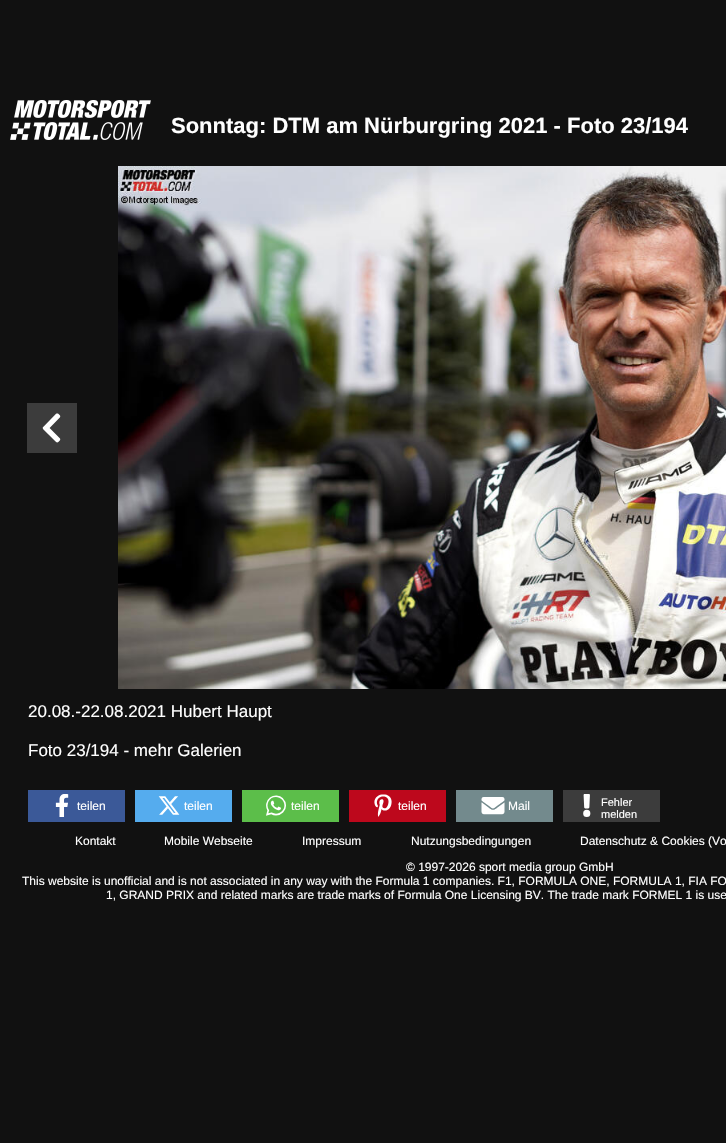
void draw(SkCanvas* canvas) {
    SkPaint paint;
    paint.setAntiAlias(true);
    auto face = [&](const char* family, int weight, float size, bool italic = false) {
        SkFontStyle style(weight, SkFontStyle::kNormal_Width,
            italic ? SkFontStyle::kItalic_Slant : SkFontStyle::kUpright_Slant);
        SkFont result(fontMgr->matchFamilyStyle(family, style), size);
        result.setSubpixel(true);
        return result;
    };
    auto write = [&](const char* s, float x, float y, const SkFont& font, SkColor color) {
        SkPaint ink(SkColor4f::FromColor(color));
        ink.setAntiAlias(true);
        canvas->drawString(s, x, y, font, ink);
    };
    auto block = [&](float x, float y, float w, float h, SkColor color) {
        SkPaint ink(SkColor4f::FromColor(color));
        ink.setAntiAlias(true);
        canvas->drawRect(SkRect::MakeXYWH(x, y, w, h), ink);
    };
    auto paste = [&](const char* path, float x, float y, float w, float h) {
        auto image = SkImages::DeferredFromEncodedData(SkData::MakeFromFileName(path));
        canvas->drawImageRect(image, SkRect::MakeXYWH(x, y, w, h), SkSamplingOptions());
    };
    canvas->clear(SkColorSetRGB(17, 17, 17));
    paste("pic1.png", 10, 100, 141, 40);
    auto kFont1 = face("Liberation Sans", 700, 22);
    write("Sonntag: DTM am Nürburgring 2021 - Foto 23/194", 171, 133, kFont1, SK_ColorWHITE);
    block(27, 403, 50, 50, SkColorSetRGB(60, 60, 60));
    paste("pic2.png", 42, 413, 19, 30);
    paste("pic3.png", 118, 166, 608, 523);
    auto kFont2 = face("Liberation Sans", 400, 17);
    write("20.08.-22.08.2021 Hubert Haupt", 28, 717, kFont2, SK_ColorWHITE);
    write("Foto 23/194 - mehr Galerien", 28, 756, kFont2, SK_ColorWHITE);
    block(28, 790, 97, 32, SkColorSetRGB(59, 89, 152));
    paste("pic4.png", 55, 794, 14, 23);
    auto kFont3 = face("Liberation Sans", 400, 12);
    write("teilen", 77, 810, kFont3, SK_ColorWHITE);
    block(135, 790, 97, 32, SkColorSetRGB(85, 172, 238));
    paste("pic5.png", 158, 796, 22, 19);
    write("teilen", 184, 810, kFont3, SK_ColorWHITE);
    block(242, 790, 97, 32, SkColorSetRGB(92, 190, 74));
    paste("pic6.png", 266, 795, 20, 21);
    write("teilen", 291, 810, kFont3, SK_ColorWHITE);
    block(349, 790, 97, 32, SkColorSetRGB(189, 8, 28));
    paste("pic7.png", 374, 794, 18, 23);
    write("teilen", 398, 810, kFont3, SK_ColorWHITE);
    block(456, 790, 97, 32, SkColorSetRGB(115, 138, 141));
    paste("pic8.png", 481, 797, 24, 18);
    write("Mail", 508, 810, kFont3, SK_ColorWHITE);
    block(563, 790, 97, 32, SkColorSetRGB(60, 60, 60));
    paste("pic9.png", 583, 794, 8, 23);
    auto kFont4 = face("Liberation Sans", 400, 11);
    write("Fehler", 601, 806, kFont4, SK_ColorWHITE);
    write("melden", 601, 818, kFont4, SK_ColorWHITE);
    write("Kontakt", 75, 845, kFont3, SK_ColorWHITE);
    write("Mobile Webseite", 164, 845, kFont3, SK_ColorWHITE);
    write("Impressum", 302, 845, kFont3, SK_ColorWHITE);
    write("Nutzungsbedingungen", 411, 845, kFont3, SK_ColorWHITE);
    write("Datenschutz & Cookies (Vo", 580, 845, kFont3, SK_ColorWHITE);
    write("© 1997-2026 sport media group GmbH", 406, 871, kFont3, SK_ColorWHITE);
    write("This website is unofficial and is not associated in any way with the Formula 1 companies. F1, FORMULA ONE, FORMULA 1, FIA FO", 22, 885, kFont3, SK_ColorWHITE);
    write("1, GRAND PRIX and related marks are trade marks of Formula One Licensing BV. The trade mark FORMEL 1 is use", 106, 899, kFont3, SK_ColorWHITE);
}
